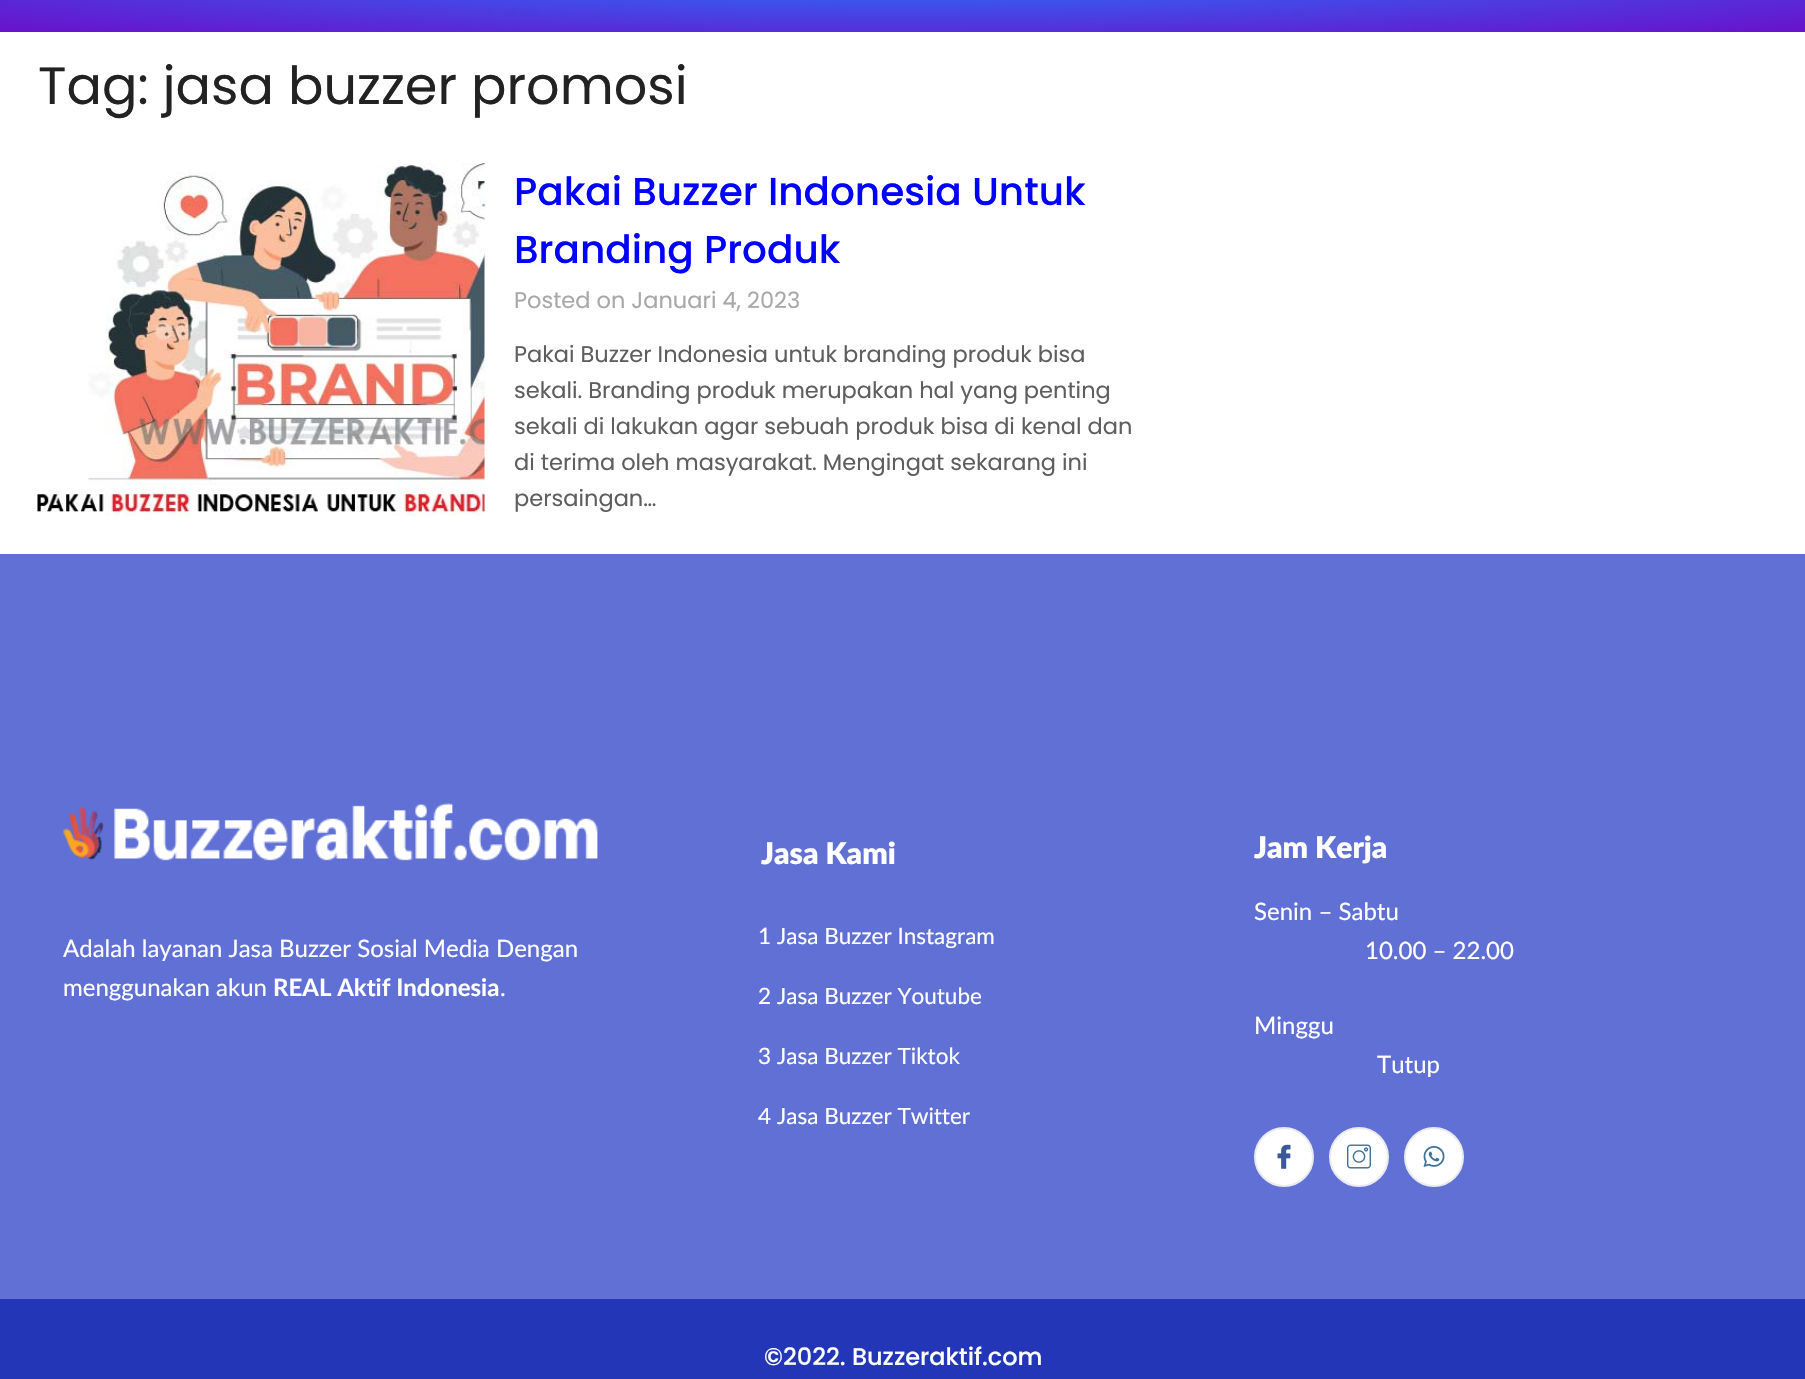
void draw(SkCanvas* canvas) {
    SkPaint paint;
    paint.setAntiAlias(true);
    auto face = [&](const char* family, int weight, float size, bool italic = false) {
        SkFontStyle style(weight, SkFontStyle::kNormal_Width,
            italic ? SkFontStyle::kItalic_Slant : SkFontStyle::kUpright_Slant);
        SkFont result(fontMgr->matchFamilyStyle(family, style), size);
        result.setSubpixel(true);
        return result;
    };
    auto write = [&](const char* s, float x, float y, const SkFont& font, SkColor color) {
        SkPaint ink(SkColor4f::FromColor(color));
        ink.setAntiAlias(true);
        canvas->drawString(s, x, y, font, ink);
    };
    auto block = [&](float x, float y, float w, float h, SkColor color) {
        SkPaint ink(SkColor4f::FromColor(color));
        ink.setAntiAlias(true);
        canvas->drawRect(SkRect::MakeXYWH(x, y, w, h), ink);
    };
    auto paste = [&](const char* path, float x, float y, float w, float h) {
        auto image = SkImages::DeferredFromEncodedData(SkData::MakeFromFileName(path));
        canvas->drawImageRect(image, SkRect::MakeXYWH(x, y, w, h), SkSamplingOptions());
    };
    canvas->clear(SK_ColorWHITE);
    {
        const SkColor colors[] = {SkColorSetRGB(37, 117, 252), SkColorSetRGB(106, 17, 203)};
        const float stops[] = {0, 1};
        SkMatrix m = SkMatrix::Translate(903, -28).preScale(1277, 85);
        paint.setShader(SkGradientShader::MakeRadial({0, 0}, 1, colors, stops, 2, SkTileMode::kClamp, 0, &m));
        paint.setAlpha(255);
    }
    canvas->drawRect(SkRect::MakeXYWH(0, 0, 1805, 32), paint);
    auto kFont1 = face("Poppins", 400, 52.5f);
    write("Tag: jasa buzzer promosi", 38, 104, kFont1, SkColorSetRGB(34, 34, 34));
    paste("pic1.png", 37, 163, 448, 353);
    auto kFont2 = face("Poppins", 500, 39);
    write("Pakai Buzzer Indonesia Untuk", 514, 205, kFont2, SkColorSetRGB(0, 0, 255));
    write("Branding Produk", 514, 263, kFont2, SkColorSetRGB(0, 0, 255));
    auto kFont3 = face("Poppins", 400, 22.5f);
    write("Posted on Januari 4, 2023", 514, 308, kFont3, SkColorSetRGB(168, 168, 168));
    write("Pakai Buzzer Indonesia untuk branding produk bisa", 514, 362, kFont3, SkColorSetRGB(94, 94, 94));
    write("sekali. Branding produk merupakan hal yang penting", 514, 398, kFont3, SkColorSetRGB(94, 94, 94));
    write("sekali di lakukan agar sebuah produk bisa di kenal dan", 514, 434, kFont3, SkColorSetRGB(94, 94, 94));
    write("di terima oleh masyarakat. Mengingat sekarang ini", 514, 470, kFont3, SkColorSetRGB(94, 94, 94));
    write("persaingan…", 514, 506, kFont3, SkColorSetRGB(94, 94, 94));
    block(0, 554, 1805, 745, SkColorSetRGB(96, 112, 213));
    paste("pic2.png", 63, 803, 535, 58);
    auto kFont4 = face("Lato", 400, 24);
    write("Adalah layanan Jasa Buzzer Sosial Media Dengan", 63, 957, kFont4, SK_ColorWHITE);
    write("menggunakan akun", 63, 996, kFont4, SK_ColorWHITE);
    auto kFont5 = face("Lato", 700, 24);
    write("REAL Aktif Indonesia", 273, 996, kFont5, SK_ColorWHITE);
    write(".", 500, 996, kFont4, SK_ColorWHITE);
    auto kFont6 = face("Lato", 800, 30);
    write("Jasa Kami", 761, 864, kFont6, SK_ColorWHITE);
    auto kFont7 = face("Lato", 400, 22.5f);
    write("1 Jasa Buzzer Instagram", 758, 944, kFont7, SK_ColorWHITE);
    write("2 Jasa Buzzer Youtube", 758, 1004, kFont7, SK_ColorWHITE);
    write("3 Jasa Buzzer Tiktok", 758, 1064, kFont7, SK_ColorWHITE);
    write("4 Jasa Buzzer Twitter", 758, 1124, kFont7, SK_ColorWHITE);
    write("Jam Kerja", 1254, 858, kFont6, SK_ColorWHITE);
    write("Senin – Sabtu", 1254, 920, kFont4, SK_ColorWHITE);
    write("10.00 – 22.00", 1365, 959, kFont4, SK_ColorWHITE);
    write("Minggu", 1254, 1034, kFont4, SK_ColorWHITE);
    write("Tutup", 1377, 1073, kFont4, SK_ColorWHITE);
    paint.setShader(nullptr);
    paint.setColor(SK_ColorWHITE);
    canvas->drawCircle(1284, 1157, 29, paint);
    paint.setStyle(SkPaint::kStroke_Style);
    paint.setStrokeWidth(2);
    paint.setColor(SkColorSetRGB(234, 235, 241));
    canvas->drawCircle(1284, 1157, 29, paint);
    paste("pic3.png", 1277, 1144, 14, 25);
    paint.setStyle(SkPaint::kFill_Style);
    paint.setColor(SK_ColorWHITE);
    canvas->drawCircle(1359, 1157, 29, paint);
    paint.setStyle(SkPaint::kStroke_Style);
    paint.setColor(SkColorSetRGB(234, 235, 241));
    canvas->drawCircle(1359, 1157, 29, paint);
    paste("pic4.png", 1347, 1144, 24, 25);
    paint.setStyle(SkPaint::kFill_Style);
    paint.setColor(SK_ColorWHITE);
    canvas->drawCircle(1434, 1157, 29, paint);
    paint.setStyle(SkPaint::kStroke_Style);
    paint.setColor(SkColorSetRGB(234, 235, 241));
    canvas->drawCircle(1434, 1157, 29, paint);
    paste("pic5.png", 1423, 1146, 22, 21);
    block(0, 1299, 1805, 80, SkColorSetRGB(34, 54, 183));
    auto kFont8 = face("Poppins", 500, 24);
    write("©2022. Buzzeraktif.com", 764, 1365, kFont8, SK_ColorWHITE);
}
